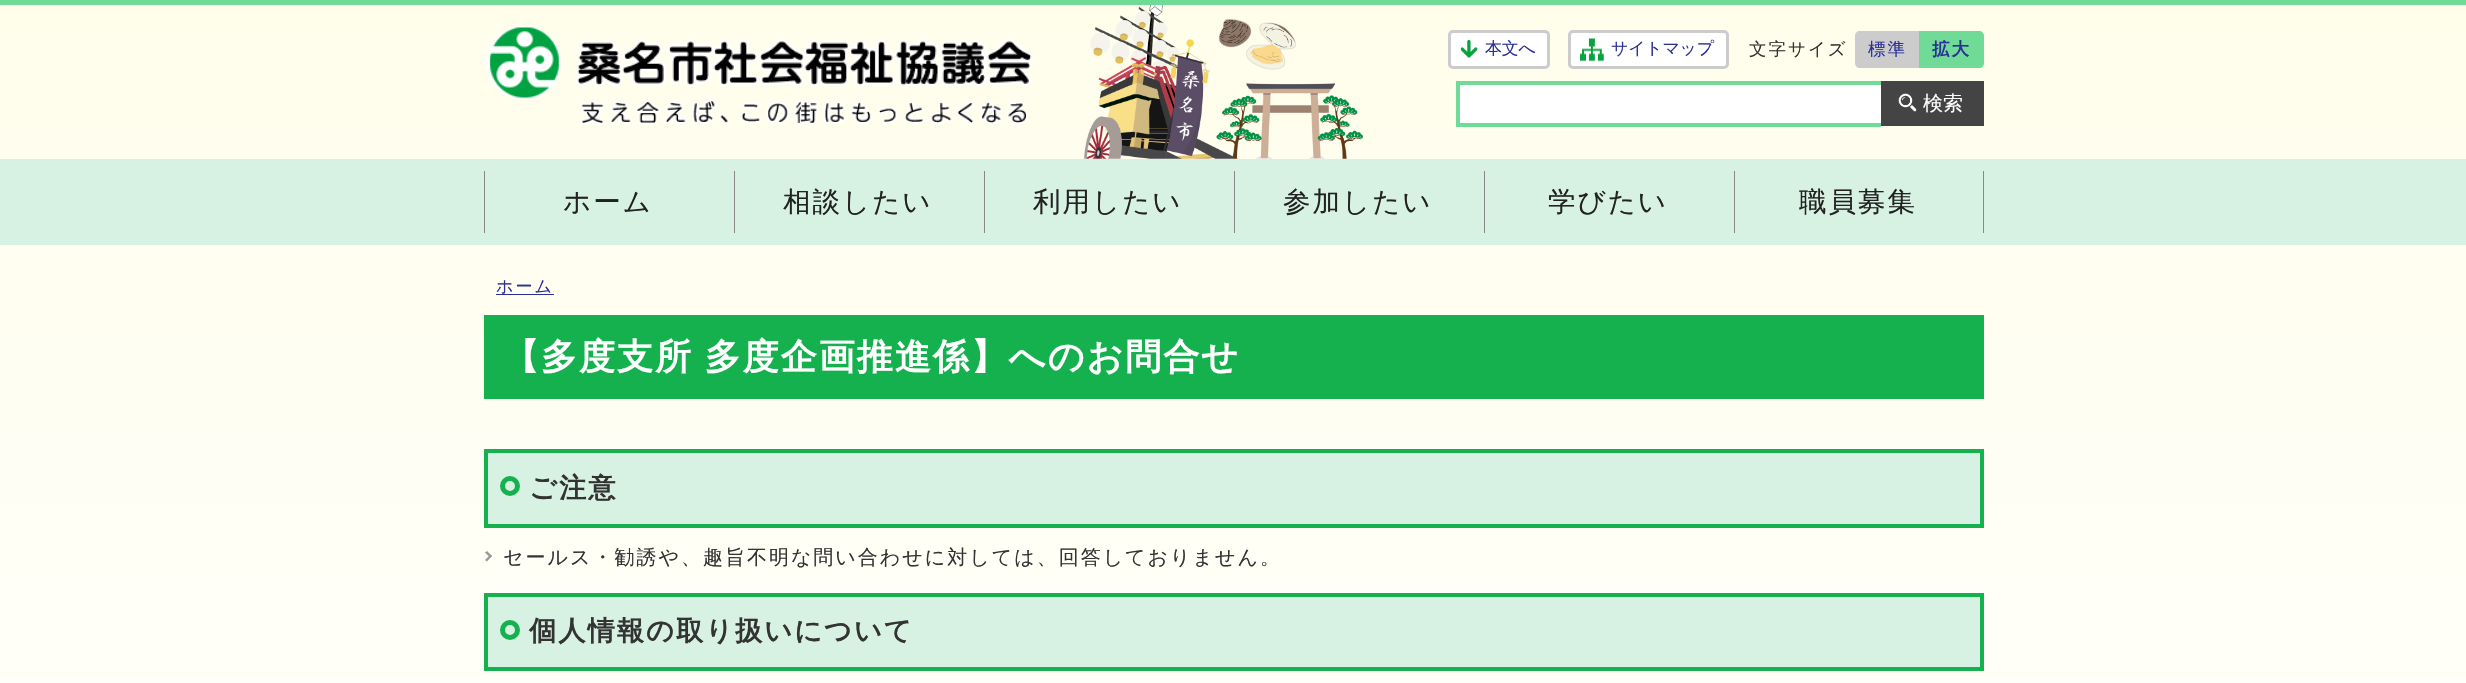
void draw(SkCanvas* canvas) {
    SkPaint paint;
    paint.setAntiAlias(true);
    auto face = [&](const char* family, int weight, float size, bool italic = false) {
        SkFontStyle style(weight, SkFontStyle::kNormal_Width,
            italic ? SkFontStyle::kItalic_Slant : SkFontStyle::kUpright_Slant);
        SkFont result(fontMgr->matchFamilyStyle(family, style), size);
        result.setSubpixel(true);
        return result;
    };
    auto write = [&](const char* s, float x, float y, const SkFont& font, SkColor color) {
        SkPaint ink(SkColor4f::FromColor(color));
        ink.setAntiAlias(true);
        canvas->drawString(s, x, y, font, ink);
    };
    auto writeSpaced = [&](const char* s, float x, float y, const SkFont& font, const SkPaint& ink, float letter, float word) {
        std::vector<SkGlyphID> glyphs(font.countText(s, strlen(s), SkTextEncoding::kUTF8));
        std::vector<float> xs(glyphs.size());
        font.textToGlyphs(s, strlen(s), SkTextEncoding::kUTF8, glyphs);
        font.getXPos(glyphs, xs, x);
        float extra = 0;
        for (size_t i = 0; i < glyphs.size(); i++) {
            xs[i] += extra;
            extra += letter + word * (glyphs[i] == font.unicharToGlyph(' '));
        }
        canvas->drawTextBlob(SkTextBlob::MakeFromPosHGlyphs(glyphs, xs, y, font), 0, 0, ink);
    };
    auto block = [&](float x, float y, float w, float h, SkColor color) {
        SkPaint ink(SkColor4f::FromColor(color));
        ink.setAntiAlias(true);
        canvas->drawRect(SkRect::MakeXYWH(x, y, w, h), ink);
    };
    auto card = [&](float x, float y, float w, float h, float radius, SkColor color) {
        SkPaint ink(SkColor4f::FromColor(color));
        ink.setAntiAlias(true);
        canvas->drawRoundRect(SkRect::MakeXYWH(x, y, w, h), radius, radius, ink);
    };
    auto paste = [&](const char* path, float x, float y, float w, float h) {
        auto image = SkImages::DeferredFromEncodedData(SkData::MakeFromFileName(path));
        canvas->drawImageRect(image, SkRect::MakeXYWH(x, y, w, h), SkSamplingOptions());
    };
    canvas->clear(SK_ColorWHITE);
    block(0, 0, 2466, 5, SkColorSetRGB(112, 219, 151));
    {
        const SkColor colors[] = {SkColorSetRGB(255, 254, 235), SK_ColorWHITE};
        const float stops[] = {0, 1};
        const SkPoint ends[] = {{1233, 5}, {1233, 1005}};
        paint.setShader(SkGradientShader::MakeLinear(ends, colors, stops, 2, SkTileMode::kClamp));
        paint.setAlpha(255);
    }
    canvas->drawRect(SkRect::MakeXYWH(0, 5, 2466, 678), paint);
    paste("pic1.png", 1083, 5, 280, 154);
    paste("pic2.png", 486, 25, 547, 75);
    paste("pic3.png", 580, 99, 448, 26);
    card(1448, 30, 102, 39, 5, SK_ColorWHITE);
    paste("pic4.png", 1460, 40, 18, 18);
    paint.setStyle(SkPaint::kStroke_Style);
    paint.setStrokeWidth(3);
    paint.setShader(nullptr);
    paint.setColor(SkColorSetRGB(204, 204, 204));
    canvas->drawRoundRect(SkRect::MakeXYWH(1449.5f, 31.5f, 99, 36), 3.5f, 3.5f, paint);
    auto kFont1 = face("WenQuanYi Zen Hei", 500, 17);
    paint.setStyle(SkPaint::kFill_Style);
    paint.setColor(SkColorSetRGB(43, 48, 149));
    writeSpaced("本文へ", 1485, 54, kFont1, paint, -0.25f, 0);
    card(1568, 30, 161, 39, 5, SK_ColorWHITE);
    paste("pic5.png", 1580, 38, 24, 24);
    paint.setStyle(SkPaint::kStroke_Style);
    paint.setColor(SkColorSetRGB(204, 204, 204));
    canvas->drawRoundRect(SkRect::MakeXYWH(1569.5f, 31.5f, 158, 36), 3.5f, 3.5f, paint);
    paint.setStyle(SkPaint::kFill_Style);
    paint.setColor(SkColorSetRGB(43, 48, 149));
    writeSpaced("サイトマップ", 1611, 54, kFont1, paint, -0.25f, 0);
    auto kFont2 = face("WenQuanYi Zen Hei", 500, 17.5f);
    paint.setColor(SkColorSetRGB(51, 51, 51));
    writeSpaced("文字サイズ", 1749, 55, kFont2, paint, 2, 0);
    paint.setColor(SkColorSetRGB(204, 204, 204));
    canvas->drawPath(SkPathBuilder().moveTo(1860, 31).lineTo(1919, 31).lineTo(1919, 68).lineTo(1860, 68).cubicTo(1857, 68, 1855, 66, 1855, 63).lineTo(1855, 36).cubicTo(1855, 33, 1857, 31, 1860, 31).close().detach(), paint);
    paint.setColor(SkColorSetRGB(43, 48, 149));
    writeSpaced("標準", 1868, 55, kFont2, paint, 2, 0);
    paint.setColor(SkColorSetRGB(112, 219, 151));
    canvas->drawPath(SkPathBuilder().moveTo(1919, 31).lineTo(1979, 31).cubicTo(1982, 31, 1984, 33, 1984, 36).lineTo(1984, 63).cubicTo(1984, 66, 1982, 68, 1979, 68).lineTo(1919, 68).close().detach(), paint);
    auto kFont3 = face("WenQuanYi Zen Hei", 700, 17.5f);
    paint.setColor(SkColorSetRGB(43, 48, 149));
    writeSpaced("拡大", 1932, 55, kFont3, paint, 2, 0);
    block(1460, 85, 421, 38, SK_ColorWHITE);
    block(1456, 81, 425, 4, SkColorSetRGB(112, 219, 151));
    block(1456, 123, 425, 4, SkColorSetRGB(112, 219, 151));
    block(1456, 81, 4, 45, SkColorSetRGB(112, 219, 151));
    block(1881, 81, 103, 45, SkColorSetRGB(68, 68, 68));
    paste("pic6.png", 1898, 93, 19, 19);
    auto kFont4 = face("WenQuanYi Zen Hei", 500, 20);
    write("検索", 1923, 110, kFont4, SK_ColorWHITE);
    block(0, 159, 2466, 86, SkColorSetRGB(215, 241, 226));
    block(484, 171, 1, 62, SkColorSetRGB(136, 136, 136));
    auto kFont5 = face("WenQuanYi Zen Hei", 500, 27.5f);
    paint.setColor(SkColorSetRGB(34, 34, 34));
    writeSpaced("ホーム", 563, 211, kFont5, paint, 2, 0);
    block(734, 171, 1, 62, SkColorSetRGB(136, 136, 136));
    writeSpaced("相談したい", 783, 211, kFont5, paint, 2, 0);
    block(984, 171, 1, 62, SkColorSetRGB(136, 136, 136));
    writeSpaced("利用したい", 1033, 211, kFont5, paint, 2, 0);
    block(1234, 171, 1, 62, SkColorSetRGB(136, 136, 136));
    writeSpaced("参加したい", 1283, 211, kFont5, paint, 2, 0);
    block(1484, 171, 1, 62, SkColorSetRGB(136, 136, 136));
    writeSpaced("学びたい", 1548, 211, kFont5, paint, 2, 0);
    block(1734, 171, 1, 62, SkColorSetRGB(136, 136, 136));
    writeSpaced("職員募集", 1799, 211, kFont5, paint, 2, 0);
    block(1983, 171, 1, 62, SkColorSetRGB(136, 136, 136));
    paint.setColor(SkColorSetRGB(43, 48, 149));
    writeSpaced("ホーム", 496, 292, kFont1, paint, 2, 0);
    block(496, 294, 58, 1, SkColorSetRGB(43, 48, 149));
    block(484, 315, 1500, 84, SkColorSetRGB(21, 177, 78));
    auto kFont6 = face("WenQuanYi Zen Hei", 700, 36);
    paint.setColor(SK_ColorWHITE);
    writeSpaced("【多度支所 多度企画推進係】へのお問合せ", 503, 369, kFont6, paint, 2, -1);
    paint.setColor(SkColorSetRGB(215, 241, 226));
    canvas->drawRect(SkRect::MakeXYWH(486, 451, 1496, 75), paint);
    paint.setStyle(SkPaint::kStroke_Style);
    paint.setStrokeWidth(4);
    paint.setColor(SkColorSetRGB(21, 177, 78));
    canvas->drawRect(SkRect::MakeXYWH(486, 451, 1496, 75), paint);
    paint.setStrokeWidth(5);
    canvas->drawCircle(510, 486, 7.5f, paint);
    auto kFont7 = face("WenQuanYi Zen Hei", 700, 27.25f);
    paint.setStyle(SkPaint::kFill_Style);
    paint.setColor(SkColorSetRGB(51, 51, 51));
    writeSpaced("ご注意", 529, 497, kFont7, paint, 2, 0);
    paint.setColor(SkColorSetRGB(153, 153, 153));
    canvas->drawPath(SkPathBuilder().moveTo(485, 552.5f).lineTo(487, 551).lineTo(492, 556).lineTo(490.5f, 558).close().detach(), paint);
    canvas->drawPath(SkPathBuilder().moveTo(485, 560).lineTo(490.5f, 554.5f).lineTo(492, 556).lineTo(487, 561.5f).close().detach(), paint);
    paint.setColor(SkColorSetRGB(51, 51, 51));
    writeSpaced("セールス・勧誘や、趣旨不明な問い合わせに対しては、回答しておりません。", 503, 564, kFont4, paint, 2, 0);
    paint.setColor(SkColorSetRGB(215, 241, 226));
    canvas->drawRect(SkRect::MakeXYWH(486, 595, 1496, 74), paint);
    paint.setStyle(SkPaint::kStroke_Style);
    paint.setStrokeWidth(4);
    paint.setColor(SkColorSetRGB(21, 177, 78));
    canvas->drawRect(SkRect::MakeXYWH(486, 595, 1496, 74), paint);
    paint.setStrokeWidth(5);
    canvas->drawCircle(510, 630, 7.5f, paint);
    paint.setStyle(SkPaint::kFill_Style);
    paint.setColor(SkColorSetRGB(51, 51, 51));
    writeSpaced("個人情報の取り扱いについて", 529, 640, kFont7, paint, 2, 0);
}
